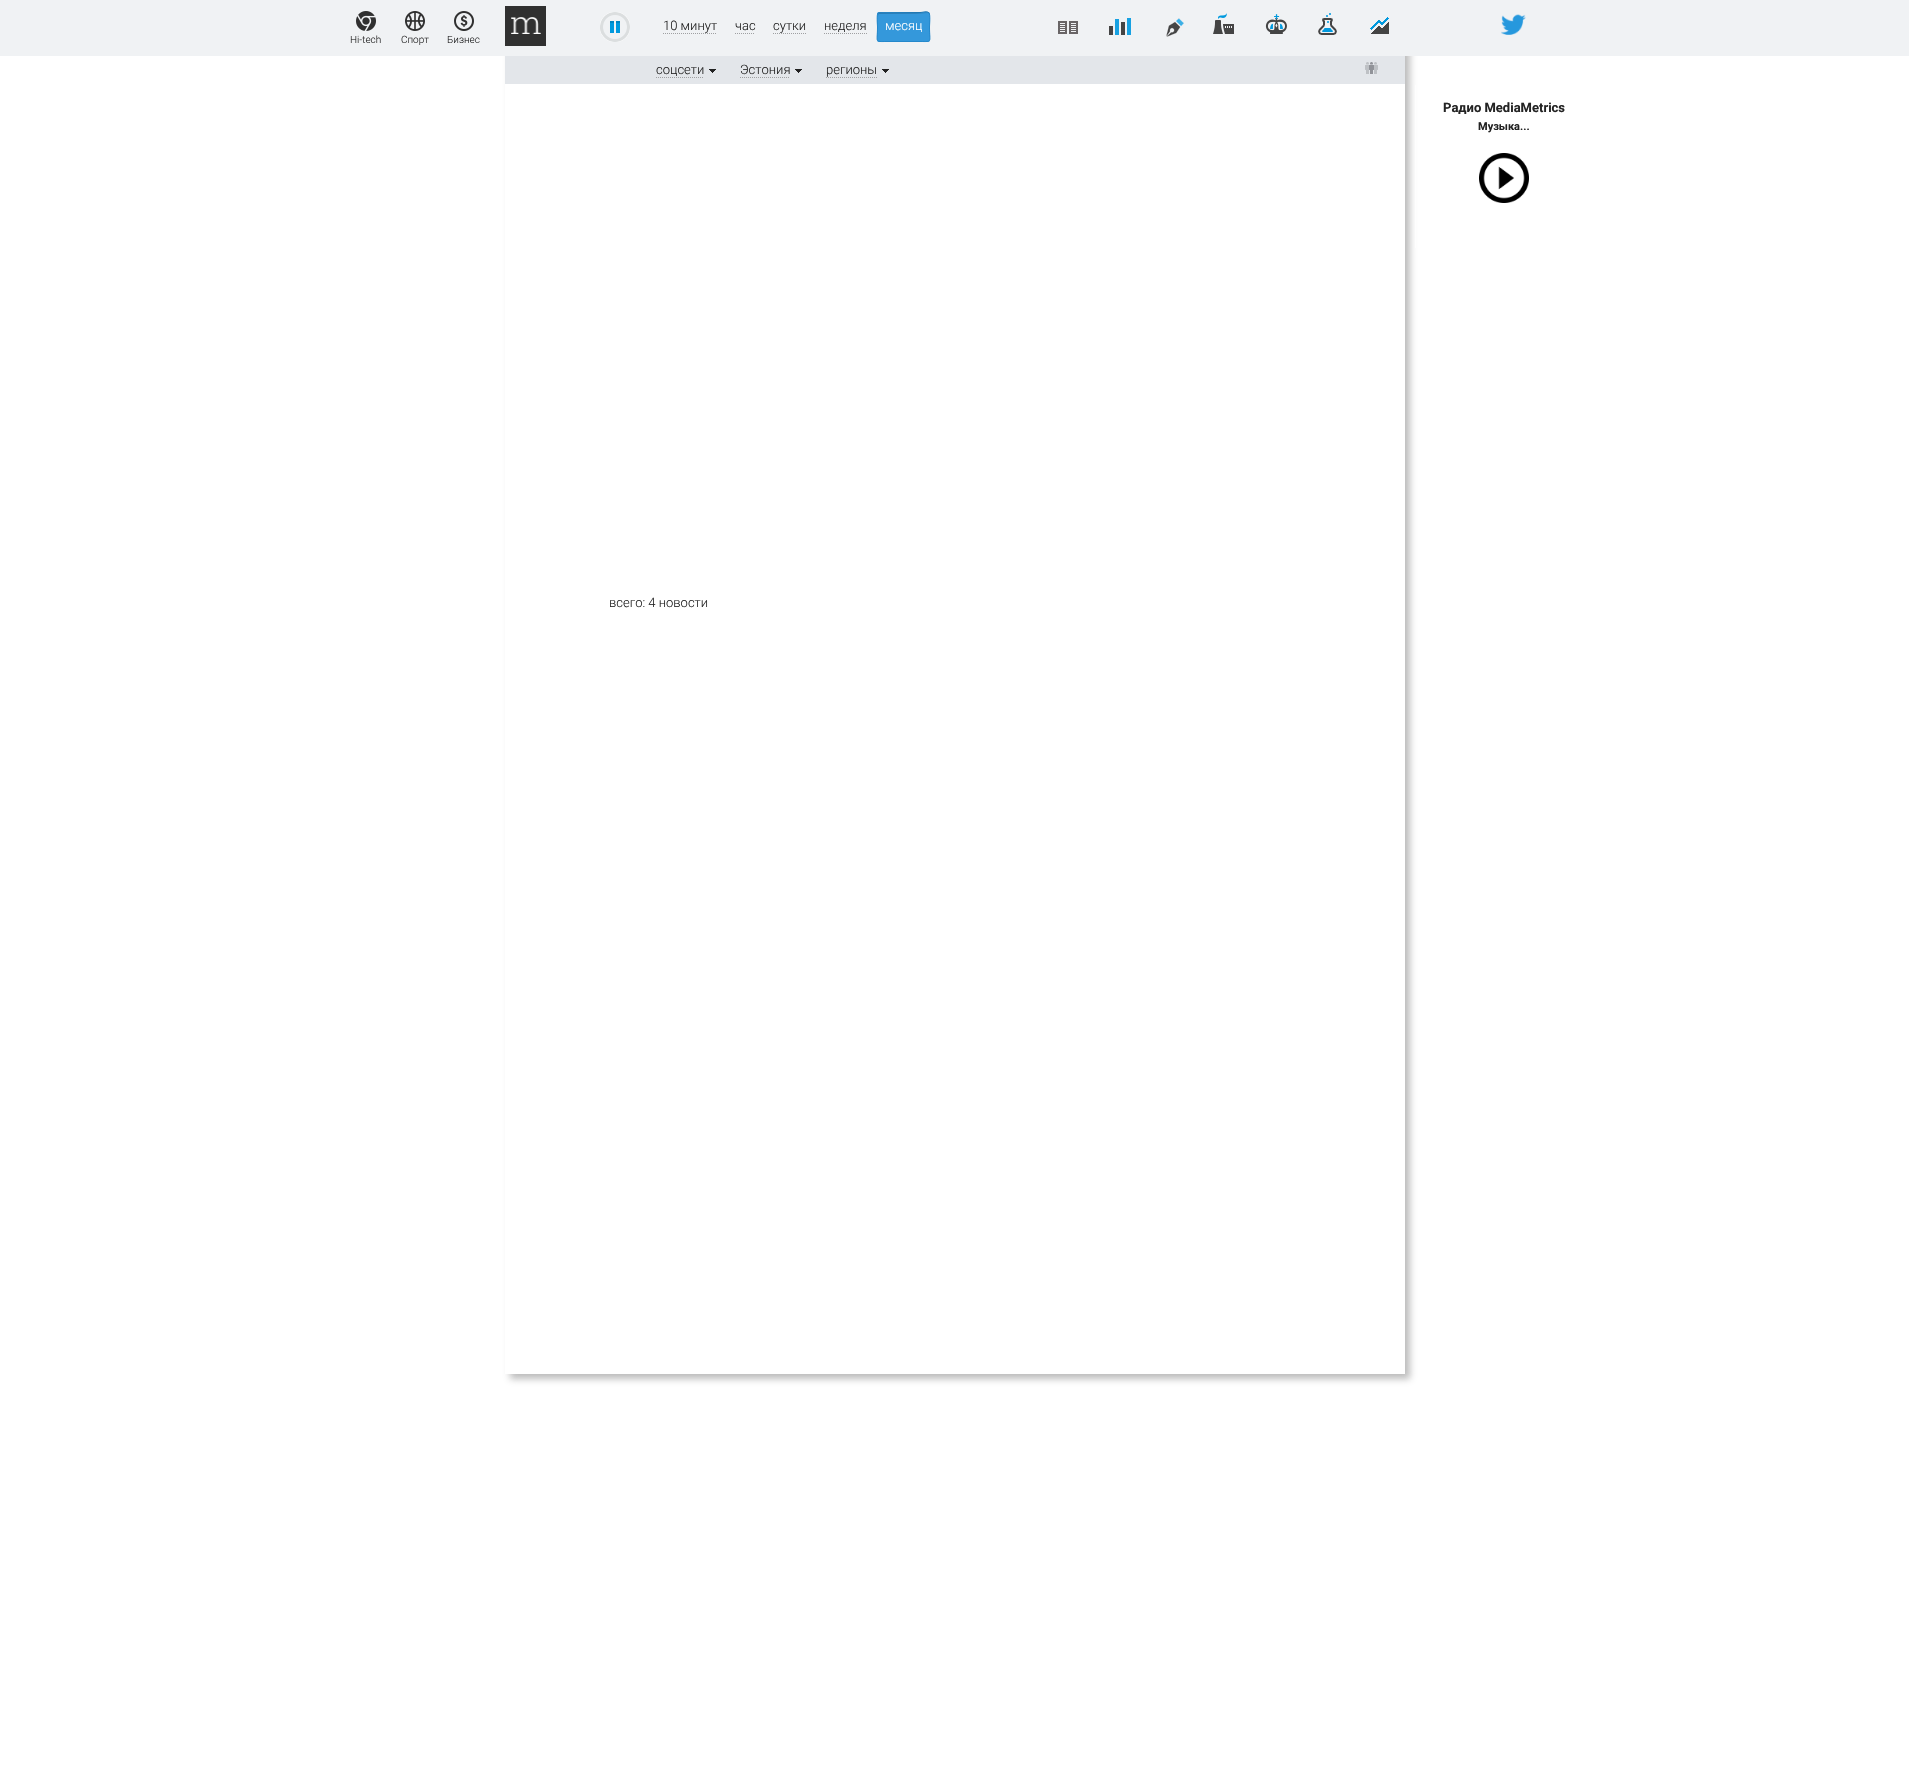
void draw(SkCanvas* canvas) {
    SkPaint paint;
    paint.setAntiAlias(true);
    auto face = [&](const char* family, int weight, float size, bool italic = false) {
        SkFontStyle style(weight, SkFontStyle::kNormal_Width,
            italic ? SkFontStyle::kItalic_Slant : SkFontStyle::kUpright_Slant);
        SkFont result(fontMgr->matchFamilyStyle(family, style), size);
        result.setSubpixel(true);
        return result;
    };
    auto write = [&](const char* s, float x, float y, const SkFont& font, SkColor color) {
        SkPaint ink(SkColor4f::FromColor(color));
        ink.setAntiAlias(true);
        canvas->drawString(s, x, y, font, ink);
    };
    auto block = [&](float x, float y, float w, float h, SkColor color) {
        SkPaint ink(SkColor4f::FromColor(color));
        ink.setAntiAlias(true);
        canvas->drawRect(SkRect::MakeXYWH(x, y, w, h), ink);
    };
    auto card = [&](float x, float y, float w, float h, float radius, SkColor color) {
        SkPaint ink(SkColor4f::FromColor(color));
        ink.setAntiAlias(true);
        canvas->drawRoundRect(SkRect::MakeXYWH(x, y, w, h), radius, radius, ink);
    };
    auto paste = [&](const char* path, float x, float y, float w, float h) {
        auto image = SkImages::DeferredFromEncodedData(SkData::MakeFromFileName(path));
        canvas->drawImageRect(image, SkRect::MakeXYWH(x, y, w, h), SkSamplingOptions());
    };
    canvas->clear(SK_ColorWHITE);
    canvas->save();
    canvas->clipPath(SkPathBuilder(SkPathFillType::kEvenOdd).moveTo(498, 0).lineTo(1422, 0).lineTo(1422, 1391).lineTo(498, 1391).close().moveTo(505, 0).lineTo(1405, 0).lineTo(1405, 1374).lineTo(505, 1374).close().detach(), true);
    paint.setColor(SkColorSetARGB(128, 122, 122, 122));
    paint.setMaskFilter(SkMaskFilter::MakeBlur(kNormal_SkBlurStyle, 3.5f));
    canvas->drawRect(SkRect::MakeXYWH(510, 5, 900, 1374), paint);
    paint.setMaskFilter(nullptr);
    canvas->restore();
    block(0, 0, 1909, 56, SkColorSetRGB(240, 242, 244));
    paste("pic1.png", 505, 6, 41, 40);
    paste("pic2.png", 600, 12, 30, 30);
    paint.setStyle(SkPaint::kStroke_Style);
    paint.setStrokeWidth(1);
    paint.setColor(SkColorSetRGB(159, 160, 162));
    paint.setPathEffect(SkDashPathEffect::Make({{1, 1}}, 0));
    canvas->drawPath(SkPathBuilder().moveTo(663, 33.5f).lineTo(717, 33.5f).detach(), paint);
    paint.setPathEffect(nullptr);
    auto kFont1 = face("Roboto", 300, 13);
    write("10 минут", 663, 30, kFont1, SkColorSetRGB(35, 35, 35));
    paint.setPathEffect(SkDashPathEffect::Make({{1, 1}}, 0));
    canvas->drawPath(SkPathBuilder().moveTo(735, 33.5f).lineTo(755, 33.5f).detach(), paint);
    paint.setPathEffect(nullptr);
    write("час", 735, 30, kFont1, SkColorSetRGB(35, 35, 35));
    paint.setPathEffect(SkDashPathEffect::Make({{1, 1}}, 0));
    canvas->drawPath(SkPathBuilder().moveTo(773, 33.5f).lineTo(806, 33.5f).detach(), paint);
    paint.setPathEffect(nullptr);
    write("сутки", 773, 30, kFont1, SkColorSetRGB(35, 35, 35));
    paint.setPathEffect(SkDashPathEffect::Make({{1, 1}}, 0));
    canvas->drawPath(SkPathBuilder().moveTo(824, 33.5f).lineTo(867, 33.5f).detach(), paint);
    paint.setPathEffect(nullptr);
    write("неделя", 824, 30, kFont1, SkColorSetRGB(35, 35, 35));
    card(877, 12, 53, 30, 2, SkColorSetRGB(52, 152, 219));
    paint.setStyle(SkPaint::kFill_Style);
    paint.setColor(SkColorSetRGB(45, 132, 191));
    canvas->drawPath(SkPathBuilder(SkPathFillType::kEvenOdd).moveTo(879, 14).lineTo(916, 14).lineTo(928, 13).cubicTo(929, 14, 929, 15, 929, 16).cubicTo(929, 11, 927, 13, 920, 13).lineTo(887, 13).cubicTo(880, 13, 878, 11, 878, 16).close().moveTo(929, 40).lineTo(929, 41).close().detach(), paint);
    paint.setStyle(SkPaint::kStroke_Style);
    paint.setColor(SkColorSetRGB(31, 118, 177));
    canvas->drawPath(SkPathBuilder().moveTo(878, 13).lineTo(920, 12.5f).cubicTo(923, 12.5f, 927, 10.5f, 929, 13).detach(), paint);
    paint.setColor(SkColorSetRGB(36, 136, 203));
    canvas->drawPath(SkPathBuilder().moveTo(929, 13).cubicTo(930.5f, 14.5f, 929.5f, 25, 929.5f, 27).cubicTo(929.5f, 43, 933, 41.5f, 920, 41.5f).lineTo(887, 41.5f).cubicTo(874, 41.5f, 877.5f, 43, 877.5f, 27).cubicTo(877.5f, 25, 876.5f, 14.5f, 878, 13).detach(), paint);
    write("месяц", 885, 30, kFont1, SK_ColorWHITE);
    paste("pic3.png", 1058, 21, 20, 13);
    paste("pic4.png", 1109, 18, 22, 17);
    paste("pic5.png", 1166, 18, 18, 19);
    paste("pic6.png", 1213, 13, 21, 21);
    paste("pic7.png", 1265, 14, 22, 20);
    paste("pic8.png", 1318, 13, 19, 22);
    paste("pic9.png", 1370, 17, 19, 17);
    paste("pic10.png", 1501, 14, 25, 21);
    paste("pic11.png", 356, 11, 20, 20);
    auto kFont2 = face("Roboto", 300, 10);
    write("Hi-tech", 350, 43, kFont2, SkColorSetRGB(35, 35, 35));
    paste("pic12.png", 405, 11, 20, 20);
    write("Спорт", 401, 43, kFont2, SkColorSetRGB(35, 35, 35));
    paste("pic13.png", 454, 11, 20, 20);
    write("Бизнес", 447, 43, kFont2, SkColorSetRGB(35, 35, 35));
    block(505, 56, 900, 28, SkColorSetRGB(227, 230, 234));
    paint.setColor(SkColorSetRGB(159, 160, 162));
    paint.setPathEffect(SkDashPathEffect::Make({{1, 1}}, 0));
    canvas->drawPath(SkPathBuilder().moveTo(656, 77.5f).lineTo(704, 77.5f).detach(), paint);
    paint.setPathEffect(nullptr);
    write("соцсети", 656, 74, kFont1, SkColorSetRGB(35, 35, 35));
    paste("pic14.png", 709, 69, 7, 4);
    paint.setPathEffect(SkDashPathEffect::Make({{1, 1}}, 0));
    canvas->drawPath(SkPathBuilder().moveTo(740, 77.5f).lineTo(790, 77.5f).detach(), paint);
    paint.setPathEffect(nullptr);
    write("Эстония", 740, 74, kFont1, SkColorSetRGB(35, 35, 35));
    paste("pic14.png", 795, 69, 7, 4);
    paint.setPathEffect(SkDashPathEffect::Make({{1, 1}}, 0));
    canvas->drawPath(SkPathBuilder().moveTo(826, 77.5f).lineTo(877, 77.5f).detach(), paint);
    paint.setPathEffect(nullptr);
    write("регионы", 826, 74, kFont1, SkColorSetRGB(35, 35, 35));
    paste("pic14.png", 882, 69, 7, 4);
    paste("pic15.png", 1365, 62, 13, 12);
    block(1415, 85, 1, 163, SkColorSetARGB(204, 255, 255, 255));
    auto kFont3 = face("Roboto", 700, 13);
    write("Радио MediaMetrics", 1443, 112, kFont3, SkColorSetRGB(35, 35, 35));
    auto kFont4 = face("Roboto", 700, 11);
    write("Музыка...", 1478, 130, kFont4, SkColorSetRGB(35, 35, 35));
    paste("pic16.png", 1479, 153, 50, 50);
    write("всего: 4 новости", 609, 607, kFont1, SkColorSetRGB(35, 35, 35));
}
